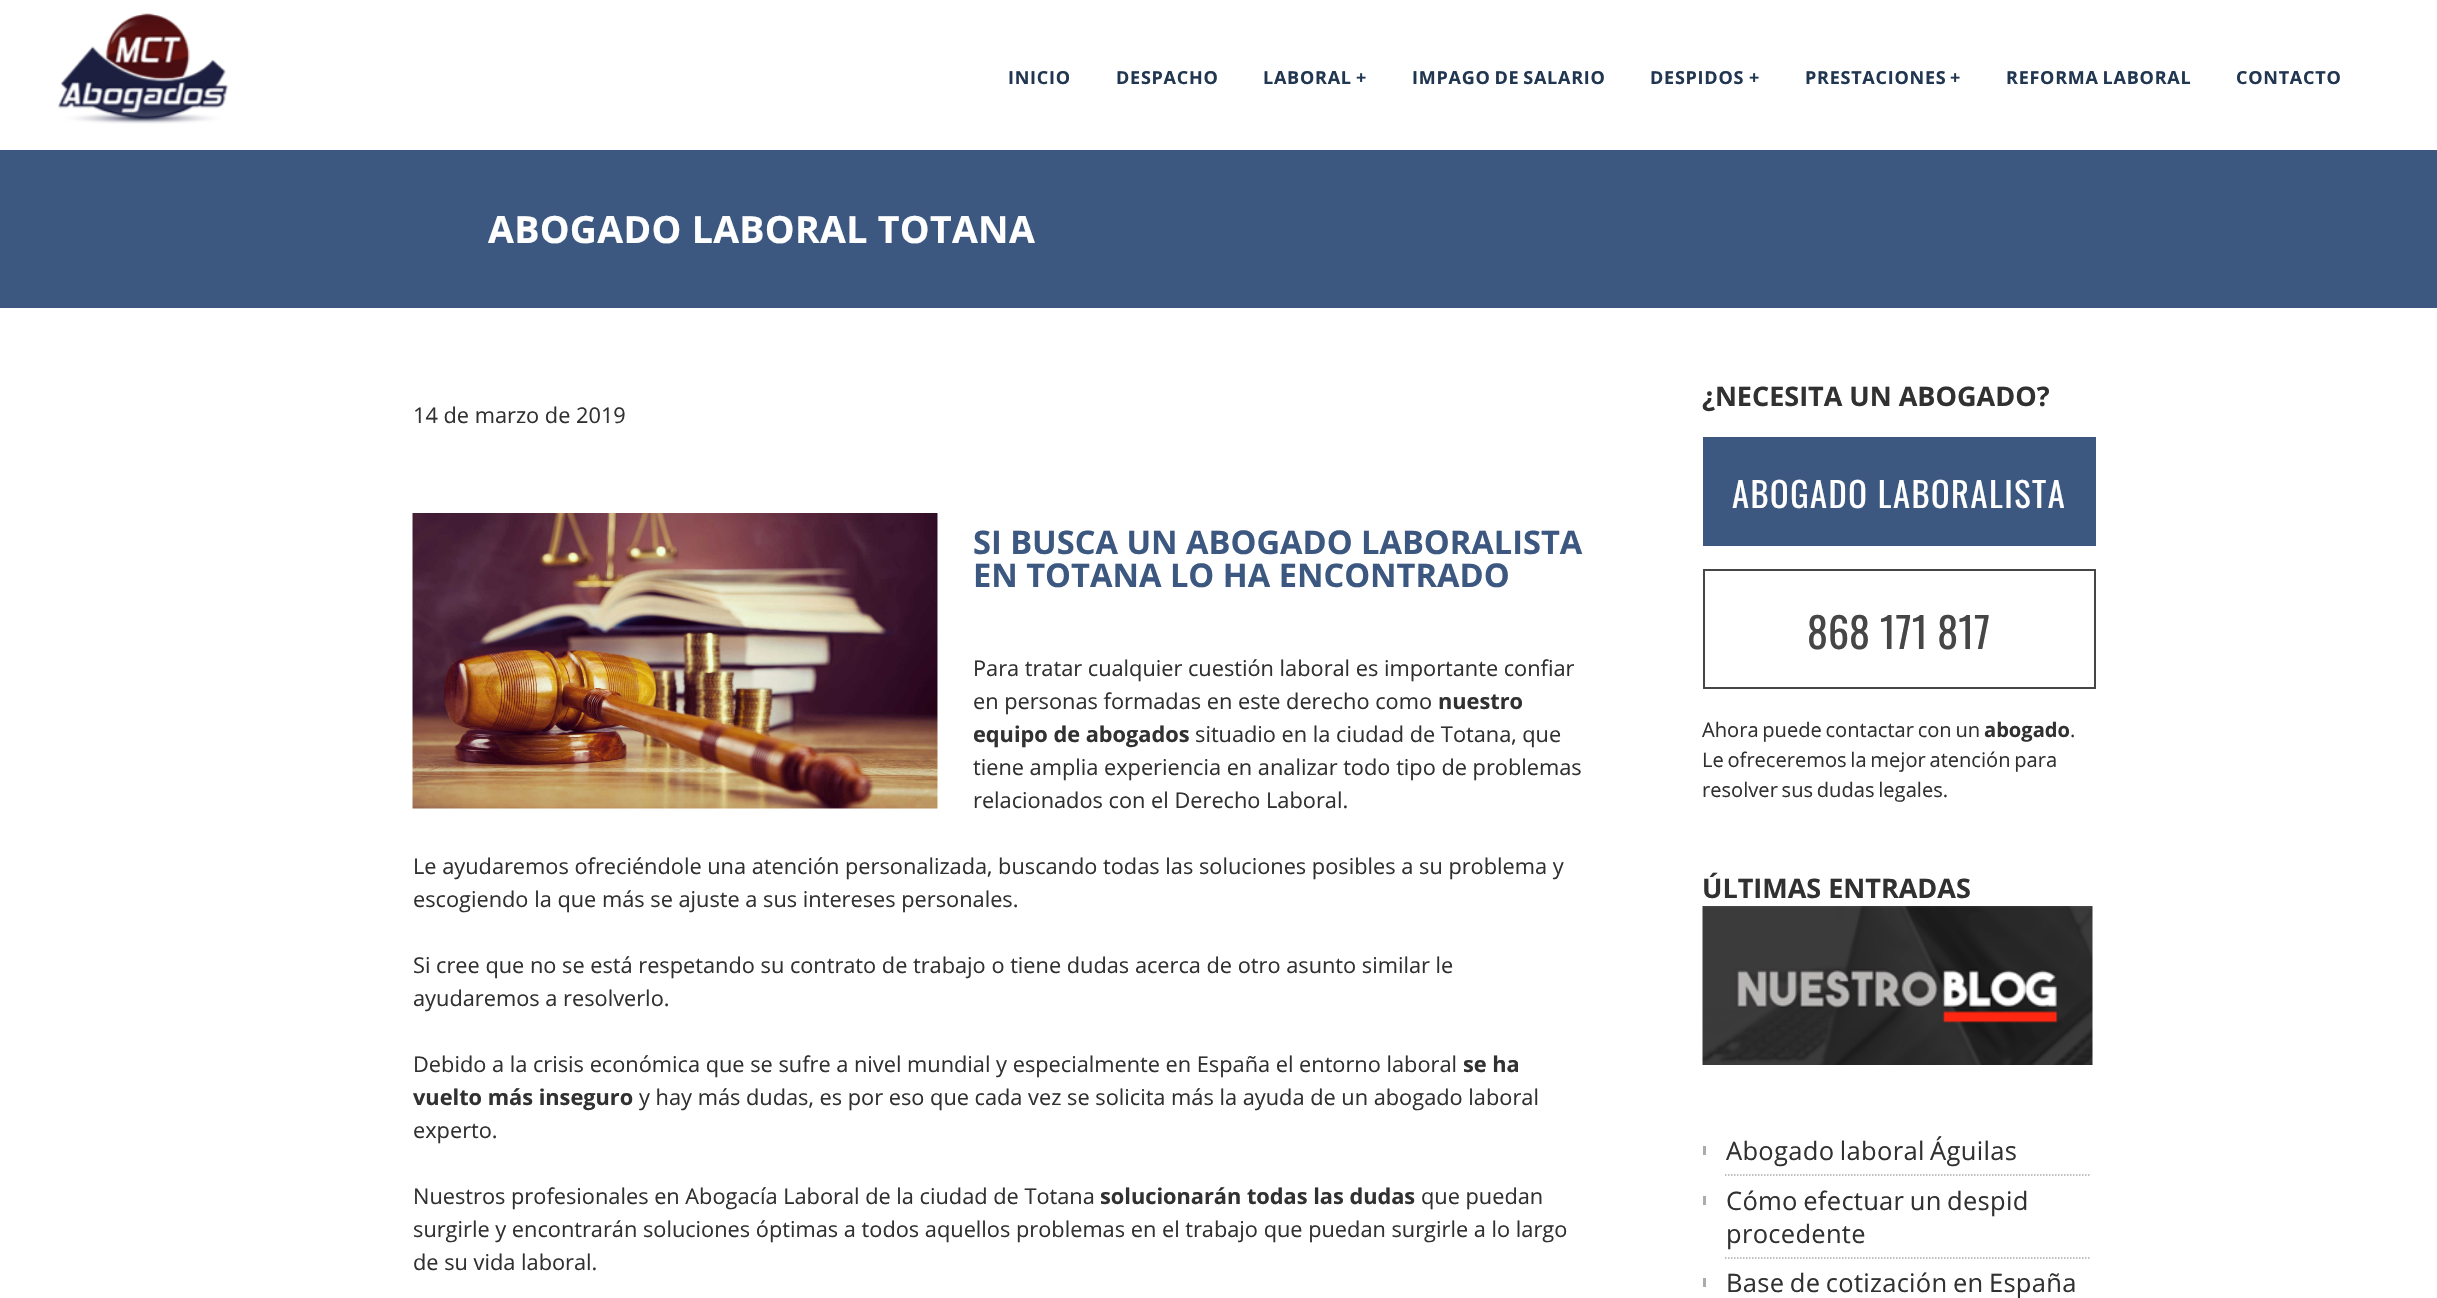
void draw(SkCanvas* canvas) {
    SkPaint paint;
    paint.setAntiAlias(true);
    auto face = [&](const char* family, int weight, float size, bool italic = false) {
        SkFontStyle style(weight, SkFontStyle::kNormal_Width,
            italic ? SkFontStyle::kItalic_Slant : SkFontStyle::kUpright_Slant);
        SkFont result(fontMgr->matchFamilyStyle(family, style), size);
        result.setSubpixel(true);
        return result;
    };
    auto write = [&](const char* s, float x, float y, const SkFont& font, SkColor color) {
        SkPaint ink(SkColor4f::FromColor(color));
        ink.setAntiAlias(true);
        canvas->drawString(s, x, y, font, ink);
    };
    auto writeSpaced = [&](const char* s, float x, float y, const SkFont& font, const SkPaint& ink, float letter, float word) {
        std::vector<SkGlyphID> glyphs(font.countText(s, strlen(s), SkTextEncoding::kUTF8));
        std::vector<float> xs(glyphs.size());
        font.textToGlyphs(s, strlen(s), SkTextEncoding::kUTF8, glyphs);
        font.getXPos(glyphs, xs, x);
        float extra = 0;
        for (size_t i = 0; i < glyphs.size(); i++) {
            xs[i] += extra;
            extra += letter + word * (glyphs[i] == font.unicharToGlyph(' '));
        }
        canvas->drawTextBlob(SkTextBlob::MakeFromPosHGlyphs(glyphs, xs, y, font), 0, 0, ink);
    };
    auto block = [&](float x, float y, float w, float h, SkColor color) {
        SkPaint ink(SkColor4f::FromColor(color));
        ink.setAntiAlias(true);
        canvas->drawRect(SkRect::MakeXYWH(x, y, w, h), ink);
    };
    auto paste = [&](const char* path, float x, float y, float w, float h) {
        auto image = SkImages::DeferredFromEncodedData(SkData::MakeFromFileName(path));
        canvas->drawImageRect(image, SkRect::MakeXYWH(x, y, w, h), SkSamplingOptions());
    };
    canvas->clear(SK_ColorWHITE);
    paste("pic1.png", 58, 13, 171, 111);
    auto kFont1 = face("Open Sans", 700, 18);
    paint.setColor(SkColorSetRGB(33, 54, 80));
    writeSpaced("INICIO", 1008, 84, kFont1, paint, 0.75f, 0);
    writeSpaced("DESPACHO", 1116, 84, kFont1, paint, 0.75f, 0);
    writeSpaced("LABORAL", 1263, 84, kFont1, paint, 0.75f, 0);
    writeSpaced("+", 1356, 84, kFont1, paint, 0.75f, 0);
    writeSpaced("IMPAGO DE SALARIO", 1412, 84, kFont1, paint, 0.75f, -1.5f);
    writeSpaced("DESPIDOS", 1650, 84, kFont1, paint, 0.75f, 0);
    writeSpaced("+", 1749, 84, kFont1, paint, 0.75f, 0);
    writeSpaced("PRESTACIONES", 1805, 84, kFont1, paint, 0.75f, 0);
    writeSpaced("+", 1950, 84, kFont1, paint, 0.75f, 0);
    writeSpaced("REFORMA LABORAL", 2006, 84, kFont1, paint, 0.75f, -1.5f);
    writeSpaced("CONTACTO", 2236, 84, kFont1, paint, 0.75f, 0);
    block(0, 150, 2437, 158, SkColorSetRGB(60, 88, 128));
    auto kFont2 = face("Open Sans", 700, 37.5f);
    paint.setColor(SK_ColorWHITE);
    writeSpaced("ABOGADO LABORAL TOTANA", 488, 243, kFont2, paint, 0.3f, 0);
    auto kFont3 = face("Open Sans", 400, 21.75f);
    write("14 de marzo de 2019", 413, 423, kFont3, SkColorSetRGB(49, 49, 49));
    paste("pic2.png", 412, 513, 526, 296);
    auto kFont4 = face("Open Sans", 700, 32.6f);
    write("SI BUSCA UN ABOGADO LABORALISTA", 973, 554, kFont4, SkColorSetRGB(60, 88, 128));
    write("EN TOTANA LO HA ENCONTRADO", 973, 587, kFont4, SkColorSetRGB(60, 88, 128));
    write("Para tratar cualquier cuestión laboral es importante confiar", 973, 676, kFont3, SkColorSetRGB(49, 49, 49));
    write("en personas formadas en este derecho como", 973, 709, kFont3, SkColorSetRGB(49, 49, 49));
    auto kFont5 = face("Open Sans", 700, 21.75f);
    write("nuestro", 1438, 709, kFont5, SkColorSetRGB(49, 49, 49));
    write("equipo de abogados", 973, 742, kFont5, SkColorSetRGB(49, 49, 49));
    write("situadio en la ciudad de Totana, que", 1195, 742, kFont3, SkColorSetRGB(49, 49, 49));
    write("tiene amplia experiencia en analizar todo tipo de problemas", 973, 775, kFont3, SkColorSetRGB(49, 49, 49));
    write("relacionados con el Derecho Laboral.", 973, 808, kFont3, SkColorSetRGB(49, 49, 49));
    write("Le ayudaremos ofreciéndole una atención personalizada, buscando todas las soluciones posibles a su problema y", 413, 874, kFont3, SkColorSetRGB(49, 49, 49));
    write("escogiendo la que más se ajuste a sus intereses personales.", 413, 907, kFont3, SkColorSetRGB(49, 49, 49));
    write("Si cree que no se está respetando su contrato de trabajo o tiene dudas acerca de otro asunto similar le", 413, 973, kFont3, SkColorSetRGB(49, 49, 49));
    write("ayudaremos a resolverlo.", 413, 1006, kFont3, SkColorSetRGB(49, 49, 49));
    write("Debido a la crisis económica que se sufre a nivel mundial y especialmente en España el entorno laboral", 413, 1072, kFont3, SkColorSetRGB(49, 49, 49));
    write("se ha", 1463, 1072, kFont5, SkColorSetRGB(49, 49, 49));
    write("vuelto más inseguro", 413, 1105, kFont5, SkColorSetRGB(49, 49, 49));
    write("y hay más dudas, es por eso que cada vez se solicita más la ayuda de un abogado laboral", 639, 1105, kFont3, SkColorSetRGB(49, 49, 49));
    write("experto.", 413, 1138, kFont3, SkColorSetRGB(49, 49, 49));
    write("Nuestros profesionales en Abogacía Laboral de la ciudad de Totana", 413, 1204, kFont3, SkColorSetRGB(49, 49, 49));
    write("solucionarán todas las dudas", 1100, 1204, kFont5, SkColorSetRGB(49, 49, 49));
    write("que puedan", 1421, 1204, kFont3, SkColorSetRGB(49, 49, 49));
    write("surgirle y encontrarán soluciones óptimas a todos aquellos problemas en el trabajo que puedan surgirle a lo largo", 413, 1237, kFont3, SkColorSetRGB(49, 49, 49));
    write("de su vida laboral.", 413, 1270, kFont3, SkColorSetRGB(49, 49, 49));
    auto kFont6 = face("Open Sans", 700, 27);
    write("¿NECESITA UN ABOGADO?", 1702, 406, kFont6, SkColorSetRGB(49, 49, 49));
    block(1703, 437, 393, 109, SkColorSetRGB(60, 88, 128));
    auto kFont7 = face("Oswald", 400, 34.5f);
    writeSpaced("ABOGADO LABORALISTA", 1732, 508, kFont7, paint, 1.5f, 0);
    paint.setStyle(SkPaint::kStroke_Style);
    paint.setStrokeWidth(2);
    paint.setColor(SkColorSetRGB(70, 70, 70));
    canvas->drawRect(SkRect::MakeXYWH(1704, 570, 391, 118), paint);
    auto kFont8 = face("Oswald", 400, 42);
    write("868 171 817", 1807, 649, kFont8, SkColorSetRGB(70, 70, 70));
    auto kFont9 = face("Open Sans", 400, 20.1f);
    paint.setStyle(SkPaint::kFill_Style);
    paint.setColor(SkColorSetRGB(49, 49, 49));
    writeSpaced("Ahora puede contactar con un", 1702, 737, kFont9, paint, 0, -1.5f);
    auto kFont10 = face("Open Sans", 700, 20.1f);
    write("abogado", 1984, 737, kFont10, SkColorSetRGB(49, 49, 49));
    write(".", 2070, 737, kFont9, SkColorSetRGB(49, 49, 49));
    writeSpaced("Le ofreceremos la mejor atención para", 1702, 767, kFont9, paint, 0, -1.5f);
    writeSpaced("resolver sus dudas legales.", 1702, 797, kFont9, paint, 0, -1.5f);
    write("ÚLTIMAS ENTRADAS", 1702, 898, kFont6, SkColorSetRGB(49, 49, 49));
    paste("pic3.png", 1702, 906, 391, 159);
    paint.setStyle(SkPaint::kStroke_Style);
    paint.setStrokeWidth(1.5f);
    paint.setColor(SkColorSetRGB(173, 171, 171));
    paint.setPathEffect(SkDashPathEffect::Make({{1.5f, 1.5f}}, 0));
    canvas->drawPath(SkPathBuilder().moveTo(1725, 1175).lineTo(2091, 1175).detach(), paint);
    paint.setPathEffect(nullptr);
    block(1703, 1146, 3, 9, SkColorSetRGB(173, 171, 171));
    auto kFont11 = face("Open Sans", 400, 25.5f);
    paint.setStyle(SkPaint::kFill_Style);
    paint.setColor(SkColorSetRGB(49, 49, 49));
    writeSpaced("Abogado laboral Águilas", 1726, 1160, kFont11, paint, 0.3f, -1.5f);
    paint.setStyle(SkPaint::kStroke_Style);
    paint.setColor(SkColorSetRGB(173, 171, 171));
    paint.setPathEffect(SkDashPathEffect::Make({{1.5f, 1.5f}}, 0));
    canvas->drawPath(SkPathBuilder().moveTo(1725, 1258).lineTo(2091, 1258).detach(), paint);
    paint.setPathEffect(nullptr);
    block(1703, 1196, 3, 9, SkColorSetRGB(173, 171, 171));
    paint.setStyle(SkPaint::kFill_Style);
    paint.setColor(SkColorSetRGB(49, 49, 49));
    writeSpaced("Cómo efectuar un despid", 1726, 1210, kFont11, paint, 0.3f, -1.5f);
    writeSpaced("procedente", 1726, 1243, kFont11, paint, 0.3f, 0);
    block(1703, 1278, 3, 9, SkColorSetRGB(173, 171, 171));
    writeSpaced("Base de cotización en España", 1726, 1292, kFont11, paint, 0.3f, -1.5f);
}
